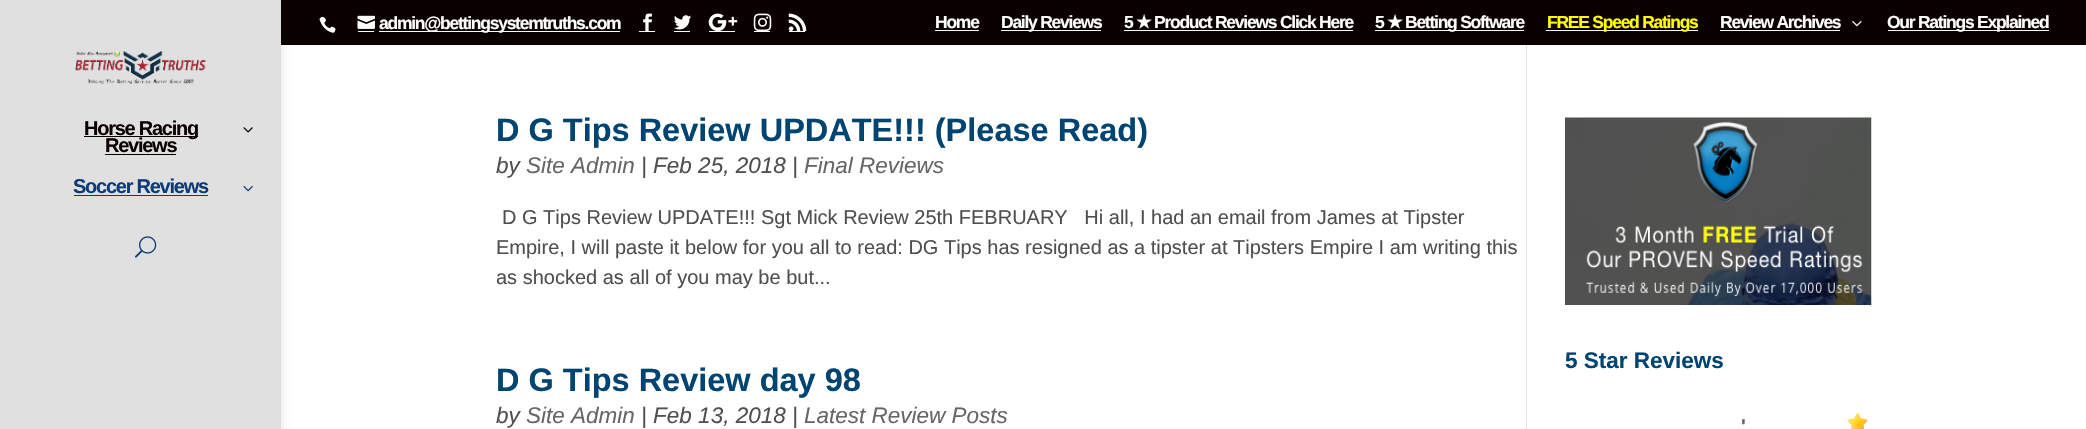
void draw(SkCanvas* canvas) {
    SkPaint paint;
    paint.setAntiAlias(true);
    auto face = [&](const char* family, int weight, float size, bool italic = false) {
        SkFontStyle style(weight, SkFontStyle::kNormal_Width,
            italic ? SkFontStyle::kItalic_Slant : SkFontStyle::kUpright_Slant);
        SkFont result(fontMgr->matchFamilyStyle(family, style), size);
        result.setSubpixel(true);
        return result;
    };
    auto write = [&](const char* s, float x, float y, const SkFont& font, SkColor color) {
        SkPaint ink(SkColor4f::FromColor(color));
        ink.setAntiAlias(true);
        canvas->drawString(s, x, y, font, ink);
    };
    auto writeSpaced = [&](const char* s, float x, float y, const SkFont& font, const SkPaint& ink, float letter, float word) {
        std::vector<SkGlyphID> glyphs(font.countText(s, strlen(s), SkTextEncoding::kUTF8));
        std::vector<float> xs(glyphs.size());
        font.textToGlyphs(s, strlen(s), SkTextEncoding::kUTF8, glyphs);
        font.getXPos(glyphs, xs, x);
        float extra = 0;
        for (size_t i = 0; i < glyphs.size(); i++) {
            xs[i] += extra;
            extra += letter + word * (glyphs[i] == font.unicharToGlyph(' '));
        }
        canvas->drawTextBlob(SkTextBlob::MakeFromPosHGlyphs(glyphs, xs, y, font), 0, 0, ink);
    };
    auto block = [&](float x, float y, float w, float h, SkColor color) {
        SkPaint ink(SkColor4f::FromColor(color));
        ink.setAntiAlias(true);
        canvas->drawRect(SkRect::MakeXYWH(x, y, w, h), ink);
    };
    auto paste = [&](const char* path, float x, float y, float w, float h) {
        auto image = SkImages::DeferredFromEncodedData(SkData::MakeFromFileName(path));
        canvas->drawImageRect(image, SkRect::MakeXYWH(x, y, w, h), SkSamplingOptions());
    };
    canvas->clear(SK_ColorWHITE);
    block(281, 0, 1805, 45, SkColorSetRGB(10, 0, 0));
    paste("pic1.png", 319, 16, 17, 17);
    paste("pic2.png", 357, 15, 18, 14);
    block(379, 31, 241, 1, SK_ColorWHITE);
    auto kFont1 = face("Liberation Sans", 700, 17.5f);
    paint.setColor(SK_ColorWHITE);
    writeSpaced("admin@bettingsystemtruths.com", 379, 29, kFont1, paint, -1.25f, 0);
    block(358, 31, 16, 1, SK_ColorWHITE);
    paste("pic3.png", 643, 13, 9, 18);
    block(639, 31, 16, 1, SK_ColorWHITE);
    paste("pic4.png", 674, 15, 17, 15);
    block(674, 31, 16, 1, SK_ColorWHITE);
    paste("pic5.png", 708, 13, 30, 18);
    block(709, 31, 26, 1, SK_ColorWHITE);
    paste("pic6.png", 753, 13, 19, 18);
    block(754, 31, 16, 1, SK_ColorWHITE);
    block(789, 31, 16, 1, SK_ColorWHITE);
    paste("pic7.png", 788, 13, 19, 19);
    writeSpaced("Home", 935, 28, kFont1, paint, -1.25f, 0);
    block(935, 30, 44, 1, SK_ColorWHITE);
    block(1001, 30, 100, 1, SK_ColorWHITE);
    writeSpaced("Daily Reviews", 1001, 28, kFont1, paint, -1.25f, 0);
    writeSpaced("5", 1124, 28, kFont1, paint, -1.25f, 0);
    block(1124, 30, 229, 1, SK_ColorWHITE);
    auto kFont2 = face("DejaVu Sans", 700, 17.5f);
    writeSpaced("★", 1136, 28, kFont2, paint, -1.25f, 0);
    writeSpaced("Product Reviews Click Here", 1154, 28, kFont1, paint, -1.25f, 0);
    writeSpaced("5", 1375, 28, kFont1, paint, -1.25f, 0);
    writeSpaced("★", 1387, 28, kFont2, paint, -1.25f, 0);
    block(1375, 30, 149, 1, SK_ColorWHITE);
    writeSpaced("Betting Software", 1405, 28, kFont1, paint, -1.25f, 0);
    block(1546, 30, 152, 1, SK_ColorWHITE);
    paint.setColor(SkColorSetRGB(255, 255, 0));
    writeSpaced("FREE Speed Ratings", 1547, 28, kFont1, paint, -1.25f, 0);
    paint.setColor(SK_ColorWHITE);
    writeSpaced("Review Archives", 1720, 28, kFont1, paint, -1.25f, 0);
    block(1720, 30, 120, 1, SK_ColorWHITE);
    paste("pic8.png", 1852, 21, 10, 6);
    block(1888, 30, 161, 1, SK_ColorWHITE);
    writeSpaced("Our Ratings Explained", 1887, 28, kFont1, paint, -1.25f, 0);
    paint.setColor(SkColorSetARGB(26, 0, 0, 0));
    paint.setMaskFilter(SkMaskFilter::MakeBlur(kNormal_SkBlurStyle, 4.5f));
    canvas->drawRect(SkRect::MakeXYWH(0, 0, 281, 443), paint);
    paint.setMaskFilter(nullptr);
    block(0, 0, 281, 429, SkColorSetRGB(224, 224, 224));
    paste("pic9.png", 75, 50, 132, 34);
    block(84, 136, 114, 1, SkColorSetRGB(10, 0, 0));
    auto kFont3 = face("Liberation Sans", 700, 20);
    paint.setColor(SkColorSetRGB(10, 0, 0));
    writeSpaced("Horse Racing", 84, 135, kFont3, paint, -1.25f, 0);
    paste("pic10.png", 243, 127, 10, 6);
    writeSpaced("Reviews", 105, 152, kFont3, paint, -1.25f, 0);
    block(105, 154, 71, 1, SkColorSetRGB(10, 0, 0));
    paint.setColor(SkColorSetRGB(13, 59, 119));
    writeSpaced("Soccer Reviews", 73, 193, kFont3, paint, -1.25f, 0);
    block(74, 195, 134, 1, SkColorSetRGB(13, 59, 119));
    paste("pic11.png", 243, 186, 10, 6);
    paste("pic12.png", 135, 236, 22, 22);
    block(1526, 45, 1, 384, SkColorSetRGB(226, 226, 226));
    auto kFont4 = face("Liberation Sans", 700, 32.5f);
    write("D G Tips Review UPDATE!!! (Please Read)", 496, 141, kFont4, SkColorSetRGB(0, 68, 114));
    auto kFont5 = face("Liberation Sans", 400, 22.5f, true);
    write("by", 496, 173, kFont5, SkColorSetRGB(79, 79, 79));
    write("Site Admin", 526, 173, kFont5, SkColorSetRGB(102, 102, 102));
    write("| Feb 25, 2018 |", 641, 173, kFont5, SkColorSetRGB(79, 79, 79));
    write("Final Reviews", 804, 173, kFont5, SkColorSetRGB(102, 102, 102));
    auto kFont6 = face("Liberation Sans", 400, 20);
    write("D G Tips Review UPDATE!!! Sgt Mick Review 25th FEBRUARY   Hi all, I had an email from James at Tipster", 502, 224, kFont6, SkColorSetRGB(79, 79, 79));
    write("Empire, I will paste it below for you all to read: DG Tips has resigned as a tipster at Tipsters Empire I am writing this", 496, 254, kFont6, SkColorSetRGB(79, 79, 79));
    write("as shocked as all of you may be but...", 496, 284, kFont6, SkColorSetRGB(79, 79, 79));
    write("D G Tips Review day 98", 496, 391, kFont4, SkColorSetRGB(0, 68, 114));
    write("by", 496, 423, kFont5, SkColorSetRGB(79, 79, 79));
    write("Site Admin", 526, 423, kFont5, SkColorSetRGB(102, 102, 102));
    write("| Feb 13, 2018 |", 641, 423, kFont5, SkColorSetRGB(79, 79, 79));
    write("Latest Review Posts", 804, 423, kFont5, SkColorSetRGB(102, 102, 102));
    paste("pic13.png", 1565, 117, 307, 188);
    auto kFont7 = face("Liberation Sans", 700, 22.5f);
    write("5 Star Reviews", 1565, 368, kFont7, SkColorSetRGB(0, 68, 114));
    write("'", 1741, 433, kFont3, SkColorSetRGB(102, 102, 102));
    paste("pic14.png", 1847, 412, 21, 17);
}
